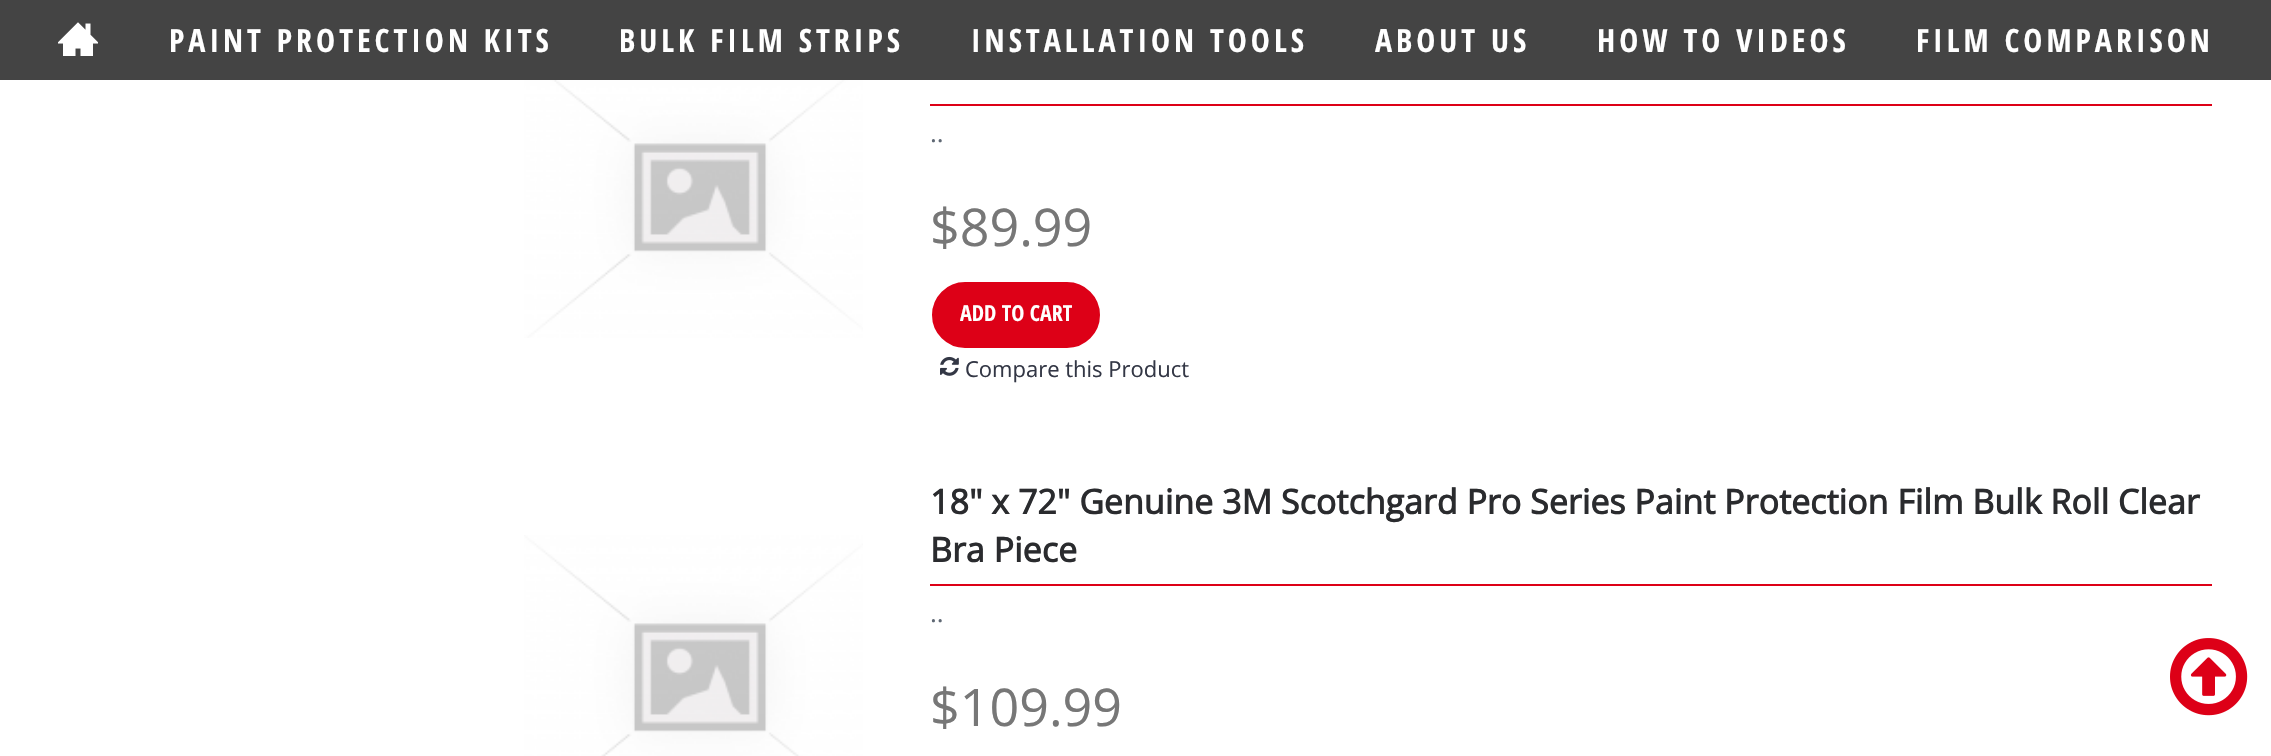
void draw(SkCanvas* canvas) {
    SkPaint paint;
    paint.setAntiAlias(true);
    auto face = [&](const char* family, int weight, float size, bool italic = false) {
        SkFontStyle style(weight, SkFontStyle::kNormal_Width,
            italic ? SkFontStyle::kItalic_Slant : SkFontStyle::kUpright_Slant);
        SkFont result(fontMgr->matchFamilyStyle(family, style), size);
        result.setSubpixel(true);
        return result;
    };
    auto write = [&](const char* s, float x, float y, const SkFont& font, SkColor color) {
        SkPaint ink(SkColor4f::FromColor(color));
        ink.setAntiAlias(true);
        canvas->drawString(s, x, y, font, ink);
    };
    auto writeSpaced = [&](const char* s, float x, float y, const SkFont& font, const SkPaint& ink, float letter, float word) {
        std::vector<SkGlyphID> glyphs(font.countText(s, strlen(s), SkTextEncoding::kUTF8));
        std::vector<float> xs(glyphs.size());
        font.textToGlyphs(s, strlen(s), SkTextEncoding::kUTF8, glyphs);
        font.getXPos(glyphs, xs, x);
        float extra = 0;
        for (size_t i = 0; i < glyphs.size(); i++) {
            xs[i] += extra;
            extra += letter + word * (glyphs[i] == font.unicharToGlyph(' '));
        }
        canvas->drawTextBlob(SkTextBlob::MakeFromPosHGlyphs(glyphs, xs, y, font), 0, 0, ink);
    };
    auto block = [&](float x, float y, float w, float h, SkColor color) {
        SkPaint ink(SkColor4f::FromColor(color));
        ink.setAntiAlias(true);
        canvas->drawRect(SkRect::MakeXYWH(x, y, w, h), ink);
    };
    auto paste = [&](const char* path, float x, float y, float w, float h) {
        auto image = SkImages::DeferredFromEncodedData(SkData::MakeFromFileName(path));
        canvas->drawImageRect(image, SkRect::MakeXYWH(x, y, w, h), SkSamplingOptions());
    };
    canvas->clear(SK_ColorWHITE);
    block(0, 0, 2271, 80, SkColorSetRGB(68, 68, 68));
    paste("pic1.png", 58, 22, 40, 34);
    auto kFont1 = face("Open Sans Condensed", 700, 32);
    paint.setColor(SK_ColorWHITE);
    writeSpaced("PAINT PROTECTION KITS", 169, 52, kFont1, paint, 4, 0);
    writeSpaced("BULK FILM STRIPS", 619, 52, kFont1, paint, 4, 0);
    writeSpaced("INSTALLATION TOOLS", 971, 52, kFont1, paint, 4, 0);
    writeSpaced("ABOUT US", 1375, 52, kFont1, paint, 4, 0);
    writeSpaced("HOW TO VIDEOS", 1597, 52, kFont1, paint, 4, 0);
    writeSpaced("FILM COMPARISON", 1916, 52, kFont1, paint, 4, 0);
    paste("pic2.png", 524, 80, 339, 258);
    block(930, 104, 1282, 2, SkColorSetRGB(221, 0, 23));
    auto kFont2 = face("Open Sans", 400, 26);
    write("..", 930, 142, kFont2, SkColorSetRGB(95, 104, 116));
    auto kFont3 = face("Open Sans", 400, 52);
    write("$89.99", 930, 246, kFont3, SkColorSetRGB(119, 119, 119));
    paint.setColor(SkColorSetRGB(221, 0, 23));
    canvas->drawRoundRect(SkRect::MakeXYWH(931, 281, 170, 68), 34, 34, paint);
    paint.setStyle(SkPaint::kStroke_Style);
    paint.setStrokeWidth(2);
    paint.setColor(SK_ColorWHITE);
    canvas->drawRoundRect(SkRect::MakeXYWH(931, 281, 170, 68), 34, 34, paint);
    auto kFont4 = face("Open Sans Condensed", 700, 22);
    write("ADD TO CART", 960, 321, kFont4, SK_ColorWHITE);
    paste("pic3.png", 940, 356, 19, 20);
    auto kFont5 = face("Open Sans", 400, 22);
    write("Compare this Product", 965, 377, kFont5, SkColorSetRGB(51, 55, 69));
    paste("pic4.png", 524, 535, 339, 221);
    block(930, 584, 1282, 2, SkColorSetRGB(221, 0, 23));
    auto kFont6 = face("Open Sans", 700, 34);
    write("18\" x 72\" Genuine 3M Scotchgard Pro Series Paint Protection Film Bulk Roll Clear", 930, 514, kFont6, SkColorSetRGB(42, 43, 46));
    write("Bra Piece", 930, 562, kFont6, SkColorSetRGB(42, 43, 46));
    write("..", 930, 622, kFont2, SkColorSetRGB(95, 104, 116));
    write("$109.99", 930, 726, kFont3, SkColorSetRGB(119, 119, 119));
    paste("pic5.png", 2170, 638, 78, 78);
}
